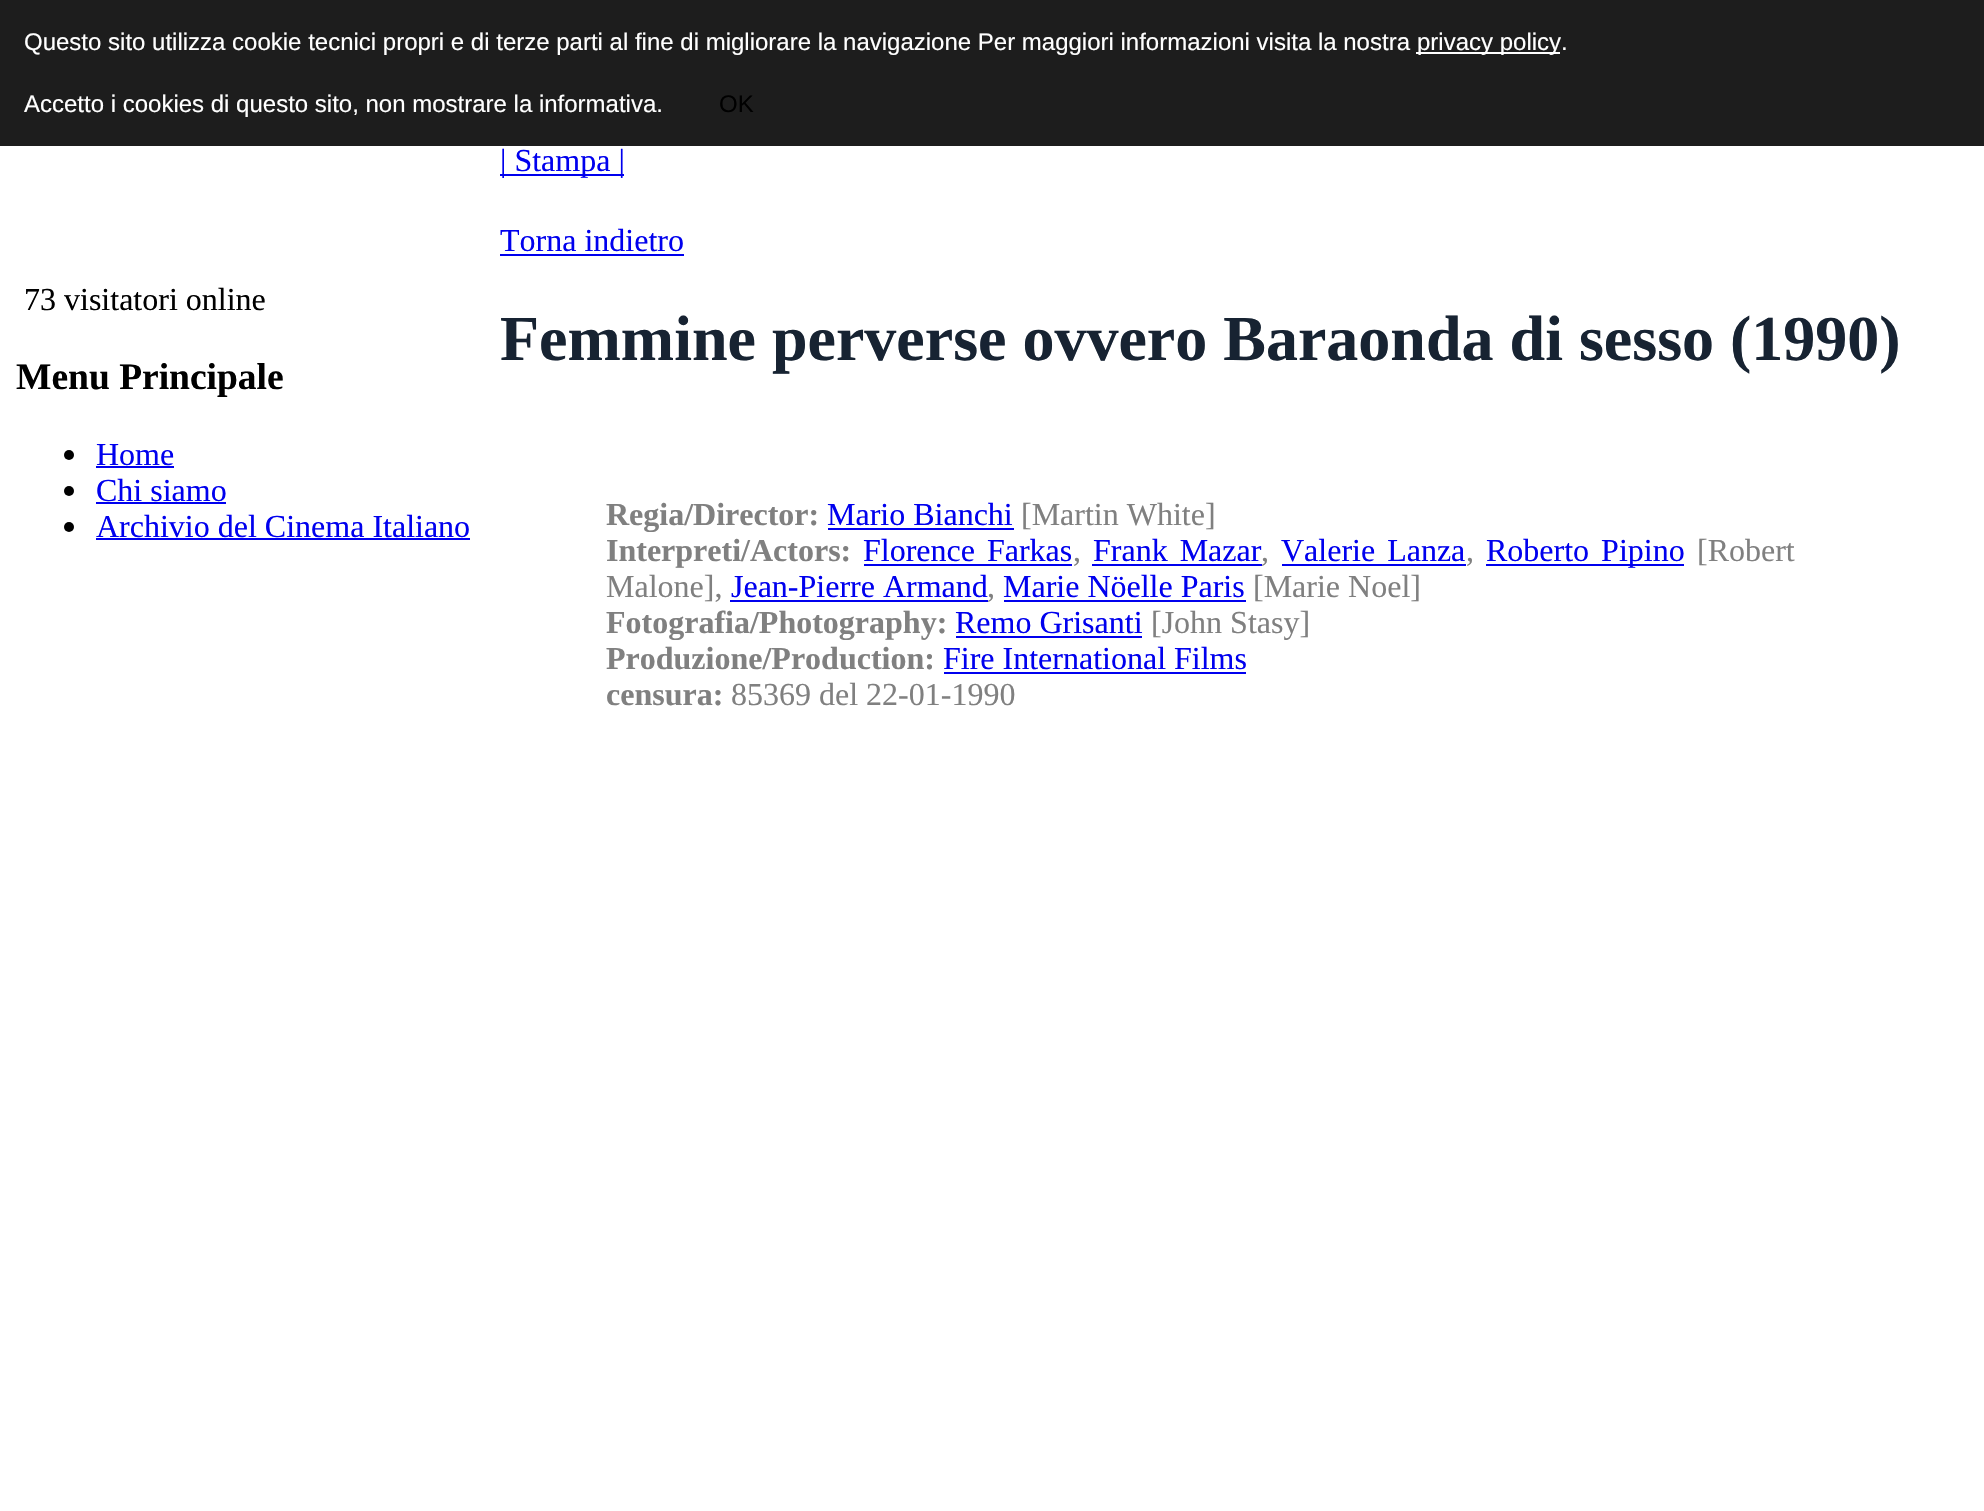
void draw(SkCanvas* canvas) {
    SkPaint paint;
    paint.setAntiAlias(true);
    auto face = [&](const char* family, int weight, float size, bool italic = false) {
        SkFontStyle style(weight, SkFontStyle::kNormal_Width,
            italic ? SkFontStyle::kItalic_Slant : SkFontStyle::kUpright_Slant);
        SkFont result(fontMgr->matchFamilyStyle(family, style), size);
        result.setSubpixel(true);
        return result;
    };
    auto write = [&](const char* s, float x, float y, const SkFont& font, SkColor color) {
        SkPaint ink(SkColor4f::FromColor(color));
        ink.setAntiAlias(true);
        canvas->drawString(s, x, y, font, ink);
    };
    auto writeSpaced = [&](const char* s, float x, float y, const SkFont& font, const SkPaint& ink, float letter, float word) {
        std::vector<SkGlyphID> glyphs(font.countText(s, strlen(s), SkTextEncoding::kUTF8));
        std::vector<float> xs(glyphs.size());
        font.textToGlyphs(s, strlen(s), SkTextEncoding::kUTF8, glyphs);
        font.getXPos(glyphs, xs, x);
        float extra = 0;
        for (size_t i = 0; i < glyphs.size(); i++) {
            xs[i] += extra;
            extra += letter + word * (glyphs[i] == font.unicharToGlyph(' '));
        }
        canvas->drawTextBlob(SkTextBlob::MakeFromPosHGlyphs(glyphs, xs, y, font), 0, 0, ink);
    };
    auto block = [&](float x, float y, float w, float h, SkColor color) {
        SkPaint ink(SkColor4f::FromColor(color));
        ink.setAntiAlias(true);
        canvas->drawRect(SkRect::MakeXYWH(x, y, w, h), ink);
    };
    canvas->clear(SK_ColorWHITE);
    block(0, 0, 1984, 146, SkColorSetRGB(29, 29, 29));
    auto kFont1 = face("Liberation Sans", 400, 24);
    write("Questo sito utilizza cookie tecnici propri e di terze parti al fine di migliorare la navigazione Per maggiori informazioni visita la nostra", 24, 50, kFont1, SK_ColorWHITE);
    block(1416, 52, 144, 2, SK_ColorWHITE);
    write("privacy policy.", 1417, 50, kFont1, SK_ColorWHITE);
    write("Accetto i cookies di questo sito, non mostrare la informativa.", 24, 112, kFont1, SK_ColorWHITE);
    write("OK", 719, 112, kFont1, SK_ColorBLACK);
    auto kFont2 = face("Liberation Serif", 400, 32);
    write("73 visitatori online", 24, 310, kFont2, SK_ColorBLACK);
    auto kFont3 = face("Liberation Serif", 700, 37.5f);
    write("Menu Principale", 16, 389, kFont3, SK_ColorBLACK);
    paint.setColor(SK_ColorBLACK);
    canvas->drawCircle(69, 455, 5, paint);
    write("Home", 96, 465, kFont2, SkColorSetRGB(0, 0, 238));
    block(96, 466, 78, 2, SkColorSetRGB(0, 0, 238));
    canvas->drawCircle(69, 491, 5, paint);
    write("Chi siamo", 96, 501, kFont2, SkColorSetRGB(0, 0, 238));
    block(96, 502, 130, 2, SkColorSetRGB(0, 0, 238));
    canvas->drawCircle(69, 527, 5, paint);
    write("Archivio del Cinema Italiano", 96, 537, kFont2, SkColorSetRGB(0, 0, 238));
    block(96, 538, 374, 2, SkColorSetRGB(0, 0, 238));
    block(500, 174, 124, 2, SkColorSetRGB(0, 0, 238));
    write("| Stampa |", 500, 171, kFont2, SkColorSetRGB(0, 0, 238));
    write("Torna indietro", 500, 251, kFont2, SkColorSetRGB(0, 0, 238));
    block(500, 254, 184, 2, SkColorSetRGB(0, 0, 238));
    auto kFont4 = face("Liberation Serif", 700, 64);
    write("Femmine perverse ovvero Baraonda di sesso (1990)", 500, 360, kFont4, SkColorSetRGB(23, 35, 50));
    auto kFont5 = face("Liberation Serif", 700, 32);
    write("Regia/Director:", 606, 525, kFont5, SkColorSetRGB(128, 128, 128));
    write("Mario Bianchi", 827, 525, kFont2, SkColorSetRGB(0, 0, 238));
    block(828, 528, 186, 2, SkColorSetRGB(0, 0, 238));
    write("[Martin White]", 1021, 525, kFont2, SkColorSetRGB(128, 128, 128));
    write("Interpreti/Actors:", 606, 561, kFont5, SkColorSetRGB(128, 128, 128));
    paint.setColor(SkColorSetRGB(0, 0, 238));
    writeSpaced("Florence Farkas", 863, 561, kFont2, paint, 0, 4);
    write(",", 1073, 561, kFont2, SkColorSetRGB(128, 128, 128));
    block(864, 564, 208, 2, SkColorSetRGB(0, 0, 238));
    writeSpaced("Frank Mazar", 1093, 561, kFont2, paint, 0, 4);
    write(",", 1261, 561, kFont2, SkColorSetRGB(128, 128, 128));
    block(1092, 564, 170, 2, SkColorSetRGB(0, 0, 238));
    writeSpaced("Valerie Lanza", 1281, 561, kFont2, paint, 0, 4);
    write(",", 1466, 561, kFont2, SkColorSetRGB(128, 128, 128));
    block(1282, 564, 184, 2, SkColorSetRGB(0, 0, 238));
    block(1486, 564, 198, 2, SkColorSetRGB(0, 0, 238));
    writeSpaced("Roberto Pipino", 1486, 561, kFont2, paint, 0, 4);
    write("[Robert", 1697, 561, kFont2, SkColorSetRGB(128, 128, 128));
    write("Malone],", 606, 597, kFont2, SkColorSetRGB(128, 128, 128));
    write("Jean-Pierre Armand", 731, 597, kFont2, SkColorSetRGB(0, 0, 238));
    write(",", 987, 597, kFont2, SkColorSetRGB(128, 128, 128));
    block(730, 600, 258, 2, SkColorSetRGB(0, 0, 238));
    block(1004, 600, 242, 2, SkColorSetRGB(0, 0, 238));
    write("Marie Nöelle Paris", 1003, 597, kFont2, SkColorSetRGB(0, 0, 238));
    write("[Marie Noel]", 1253, 597, kFont2, SkColorSetRGB(128, 128, 128));
    write("Fotografia/Photography:", 606, 633, kFont5, SkColorSetRGB(128, 128, 128));
    write("Remo Grisanti", 955, 633, kFont2, SkColorSetRGB(0, 0, 238));
    block(956, 636, 186, 2, SkColorSetRGB(0, 0, 238));
    write("[John Stasy]", 1151, 633, kFont2, SkColorSetRGB(128, 128, 128));
    write("Produzione/Production:", 606, 669, kFont5, SkColorSetRGB(128, 128, 128));
    write("Fire International Films", 943, 669, kFont2, SkColorSetRGB(0, 0, 238));
    block(944, 672, 302, 2, SkColorSetRGB(0, 0, 238));
    write("censura:", 606, 705, kFont5, SkColorSetRGB(128, 128, 128));
    write("85369 del 22-01-1990", 731, 705, kFont2, SkColorSetRGB(128, 128, 128));
}
